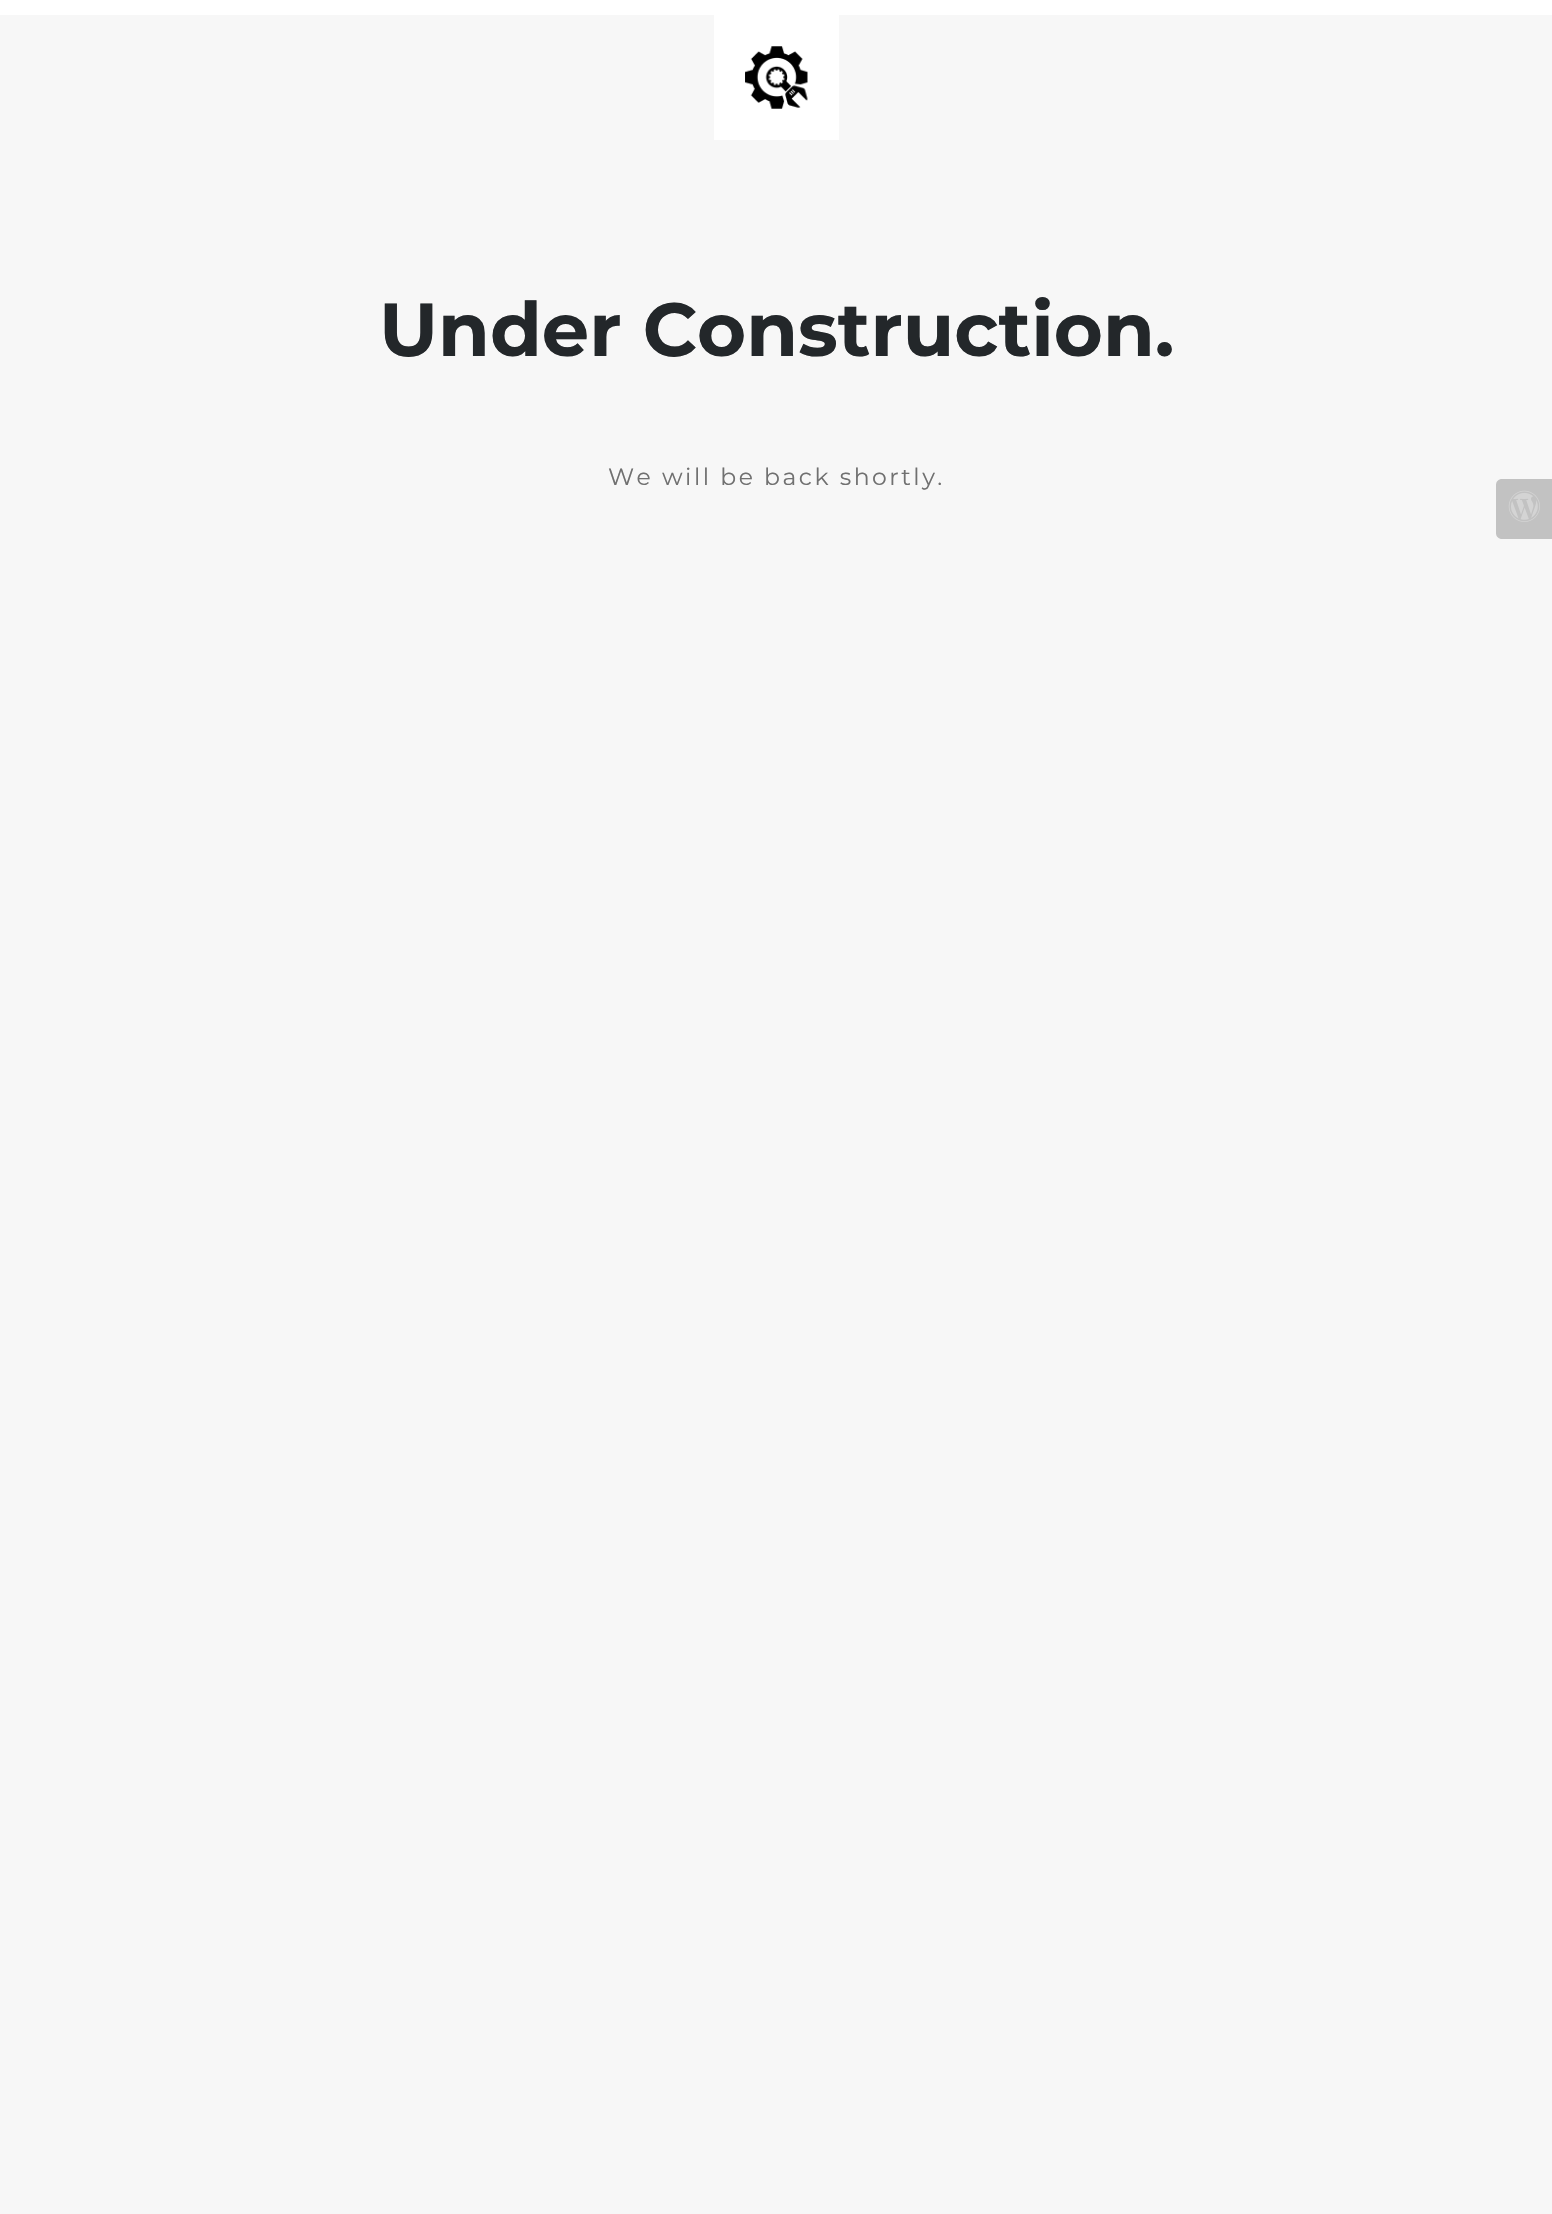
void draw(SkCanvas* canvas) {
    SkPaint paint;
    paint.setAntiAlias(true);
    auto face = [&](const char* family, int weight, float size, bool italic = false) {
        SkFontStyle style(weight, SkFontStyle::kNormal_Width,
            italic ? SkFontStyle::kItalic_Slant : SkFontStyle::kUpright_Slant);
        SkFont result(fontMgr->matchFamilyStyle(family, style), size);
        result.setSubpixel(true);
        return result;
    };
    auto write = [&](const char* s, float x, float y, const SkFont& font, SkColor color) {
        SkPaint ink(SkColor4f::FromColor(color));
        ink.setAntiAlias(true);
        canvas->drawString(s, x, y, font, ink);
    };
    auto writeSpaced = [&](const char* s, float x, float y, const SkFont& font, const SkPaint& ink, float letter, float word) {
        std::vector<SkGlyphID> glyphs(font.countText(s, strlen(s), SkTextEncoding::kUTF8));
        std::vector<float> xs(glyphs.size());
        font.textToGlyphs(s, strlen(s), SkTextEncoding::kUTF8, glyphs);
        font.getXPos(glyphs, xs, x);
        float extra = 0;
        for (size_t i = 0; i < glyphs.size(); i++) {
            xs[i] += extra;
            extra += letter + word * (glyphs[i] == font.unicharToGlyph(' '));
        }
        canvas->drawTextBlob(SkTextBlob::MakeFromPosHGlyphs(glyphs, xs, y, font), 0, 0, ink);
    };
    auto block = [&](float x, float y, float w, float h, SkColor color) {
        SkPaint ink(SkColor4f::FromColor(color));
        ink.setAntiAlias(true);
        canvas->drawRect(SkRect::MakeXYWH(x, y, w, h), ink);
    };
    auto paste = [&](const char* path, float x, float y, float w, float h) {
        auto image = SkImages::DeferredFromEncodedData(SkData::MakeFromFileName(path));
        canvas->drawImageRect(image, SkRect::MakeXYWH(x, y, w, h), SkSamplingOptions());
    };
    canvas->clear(SkColorSetRGB(247, 247, 247));
    block(0, 0, 1552, 15, SK_ColorWHITE);
    block(714, 15, 125, 125, SK_ColorWHITE);
    paste("pic1.png", 745, 46, 63, 63);
    auto kFont1 = face("Montserrat", 100, 75);
    write("Under Construction.", 379, 356, kFont1, SkColorSetRGB(35, 39, 42));
    auto kFont2 = face("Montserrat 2", 100, 23.5f);
    paint.setColor(SkColorSetRGB(112, 112, 112));
    writeSpaced("We will be back shortly.", 608, 485, kFont2, paint, 2.5f, 0);
    paint.setColor(SkColorSetRGB(194, 194, 194));
    canvas->drawPath(SkPathBuilder().moveTo(1502, 479).lineTo(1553, 479).lineTo(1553, 539).lineTo(1502, 539).cubicTo(1498.5f, 539, 1496, 536.5f, 1496, 533).lineTo(1496, 485).cubicTo(1496, 481.5f, 1498.5f, 479, 1502, 479).close().detach(), paint);
    paste("pic2.png", 1508, 490, 32, 32);
}
